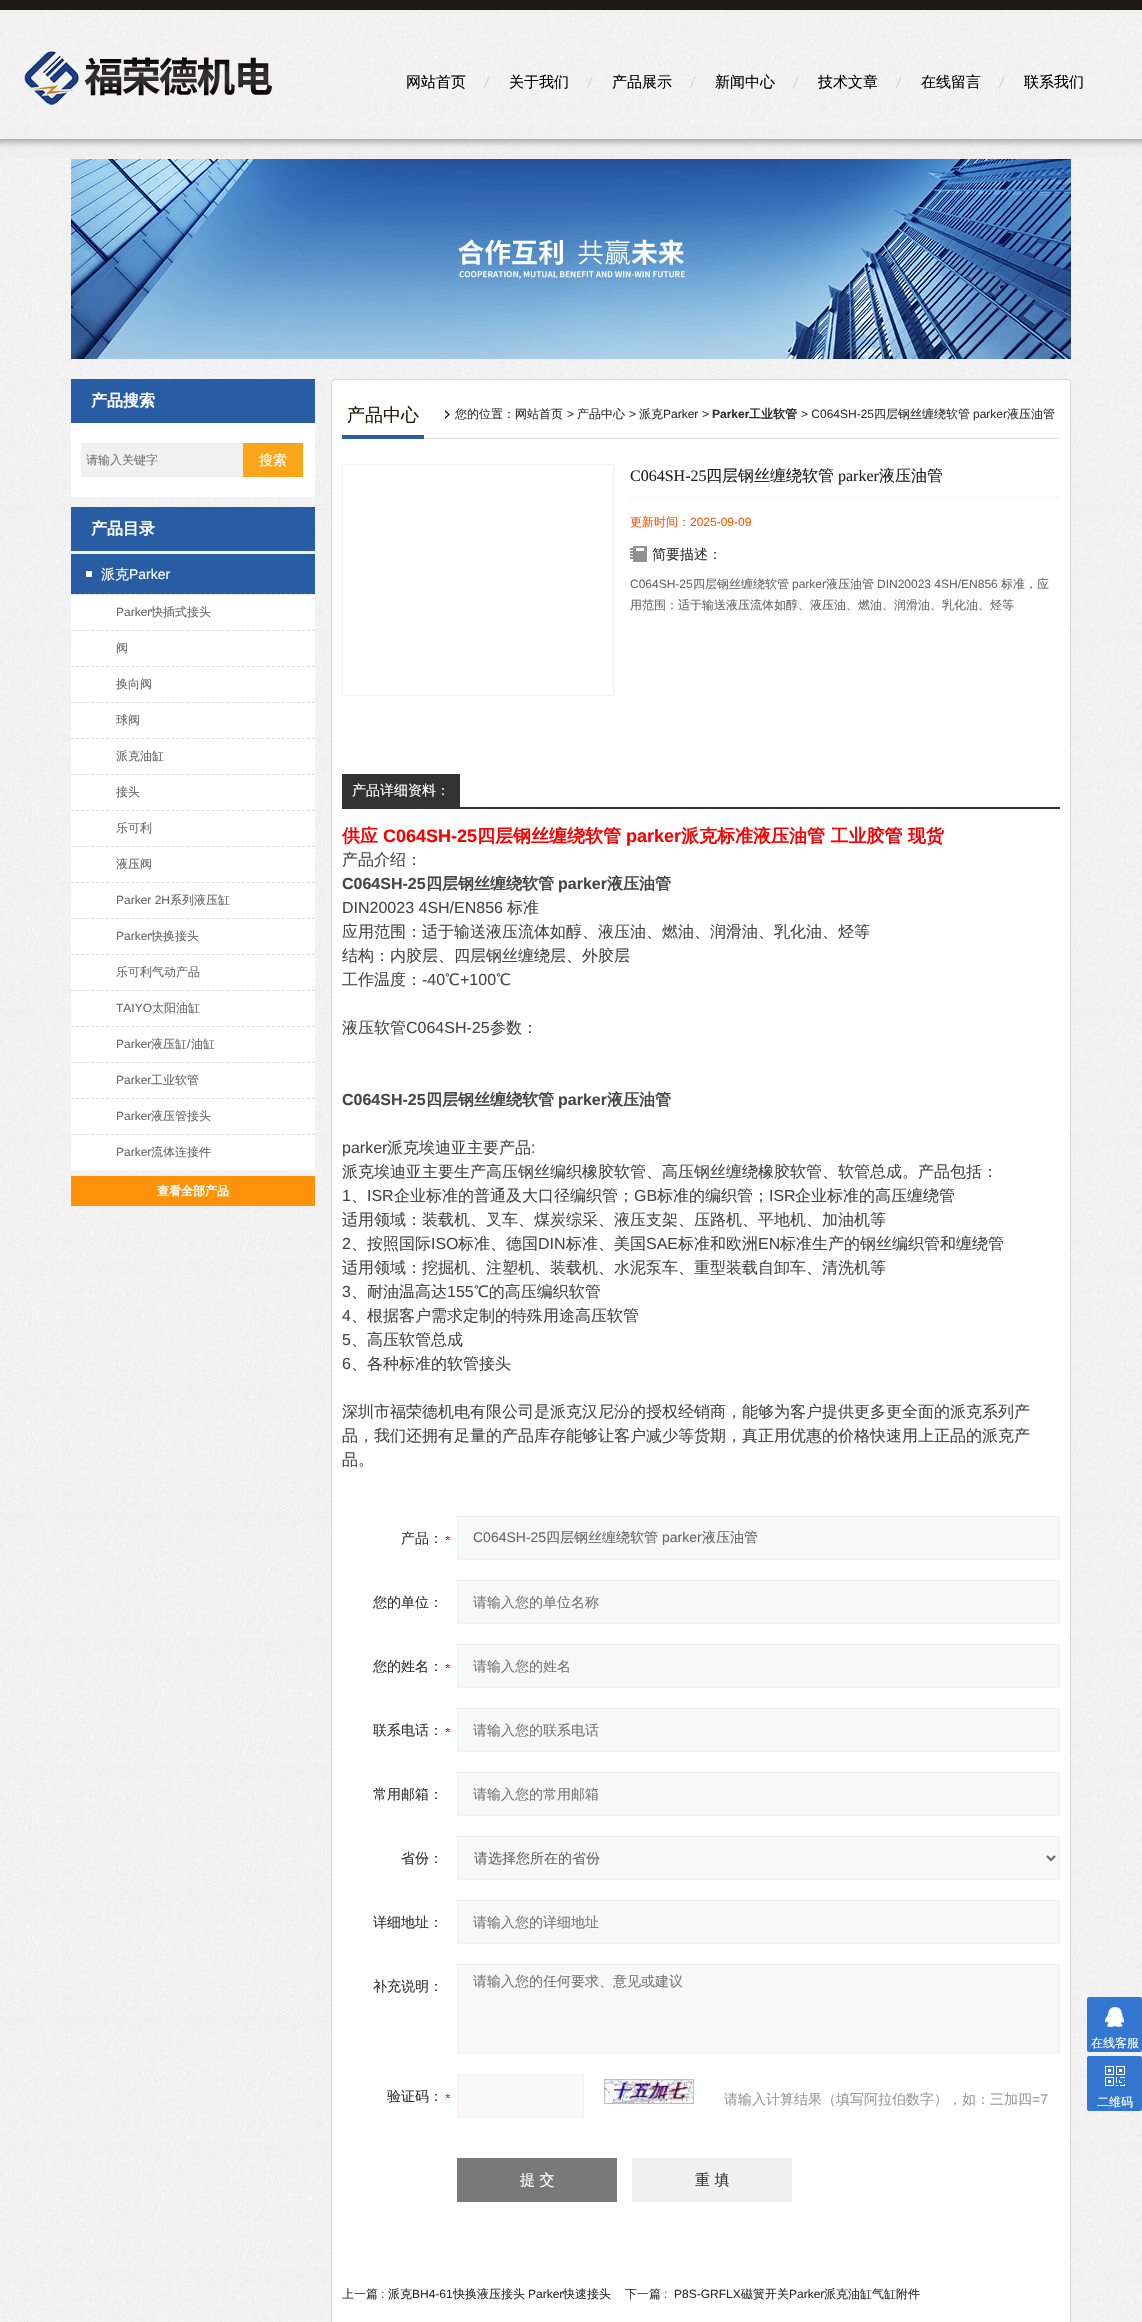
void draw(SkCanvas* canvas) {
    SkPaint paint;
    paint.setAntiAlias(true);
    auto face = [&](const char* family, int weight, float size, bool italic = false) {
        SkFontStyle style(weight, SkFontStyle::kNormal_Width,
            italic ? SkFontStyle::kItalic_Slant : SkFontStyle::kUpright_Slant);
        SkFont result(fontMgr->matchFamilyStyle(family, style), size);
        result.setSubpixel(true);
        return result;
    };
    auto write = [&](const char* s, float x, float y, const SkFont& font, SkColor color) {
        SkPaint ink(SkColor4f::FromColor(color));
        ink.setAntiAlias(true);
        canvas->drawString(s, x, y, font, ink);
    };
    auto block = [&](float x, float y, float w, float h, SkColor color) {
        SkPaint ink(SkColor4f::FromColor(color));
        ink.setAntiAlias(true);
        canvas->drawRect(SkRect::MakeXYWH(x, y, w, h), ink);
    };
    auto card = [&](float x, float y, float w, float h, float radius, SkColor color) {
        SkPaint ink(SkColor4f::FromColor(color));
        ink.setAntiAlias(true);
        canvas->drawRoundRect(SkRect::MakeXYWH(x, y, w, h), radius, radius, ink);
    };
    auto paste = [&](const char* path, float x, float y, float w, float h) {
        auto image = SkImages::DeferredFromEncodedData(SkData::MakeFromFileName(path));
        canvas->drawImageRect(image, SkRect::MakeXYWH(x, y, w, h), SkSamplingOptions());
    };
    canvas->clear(SK_ColorWHITE);
    paste("pic1.png", 0, 10, 1142, 2312);
    block(0, 0, 1142, 10, SkColorSetRGB(31, 26, 23));
    paste("pic2.png", 24, 51, 248, 54);
    auto kFont1 = face("WenQuanYi Zen Hei", 500, 15);
    write("网站首页", 406, 87, kFont1, SkColorSetRGB(1, 1, 1));
    paste("pic3.png", 484, 75, 6, 14);
    write("关于我们", 509, 87, kFont1, SkColorSetRGB(1, 1, 1));
    paste("pic3.png", 587, 75, 6, 14);
    write("产品展示", 612, 87, kFont1, SkColorSetRGB(1, 1, 1));
    paste("pic3.png", 690, 75, 6, 14);
    write("新闻中心", 715, 87, kFont1, SkColorSetRGB(1, 1, 1));
    paste("pic3.png", 793, 75, 6, 14);
    write("技术文章", 818, 87, kFont1, SkColorSetRGB(1, 1, 1));
    paste("pic3.png", 896, 75, 6, 14);
    write("在线留言", 921, 87, kFont1, SkColorSetRGB(1, 1, 1));
    paste("pic3.png", 999, 75, 6, 14);
    write("联系我们", 1024, 87, kFont1, SkColorSetRGB(1, 1, 1));
    paste("pic4.png", 0, 139, 1142, 19);
    paste("pic5.png", 71, 159, 1000, 200);
    block(71, 423, 244, 74, SK_ColorWHITE);
    block(71, 379, 244, 44, SkColorSetRGB(40, 93, 163));
    auto kFont2 = face("WenQuanYi Zen Hei", 700, 16);
    write("产品搜索", 91, 406, kFont2, SK_ColorWHITE);
    block(81, 443, 162, 34, SkColorSetRGB(241, 241, 241));
    auto kFont3 = face("WenQuanYi Zen Hei", 500, 12);
    write("请输入关键字", 86, 464, kFont3, SkColorSetRGB(117, 117, 117));
    block(243, 443, 60, 34, SkColorSetRGB(249, 166, 26));
    auto kFont4 = face("WenQuanYi Zen Hei", 500, 14);
    write("搜索", 259, 465, kFont4, SK_ColorWHITE);
    block(71, 507, 244, 44, SkColorSetRGB(40, 93, 163));
    write("产品目录", 91, 534, kFont2, SK_ColorWHITE);
    block(71, 551, 244, 3, SkColorSetRGB(242, 242, 242));
    block(71, 1170, 244, 1, SkColorSetRGB(245, 245, 245));
    block(71, 554, 244, 40, SkColorSetRGB(40, 93, 163));
    block(86, 571, 6, 6, SK_ColorWHITE);
    write("派克", 101, 579, kFont4, SK_ColorWHITE);
    auto kFont5 = face("Liberation Sans", 400, 14);
    write("Parker", 129, 579, kFont5, SK_ColorWHITE);
    block(71, 594, 244, 576, SK_ColorWHITE);
    paint.setStyle(SkPaint::kStroke_Style);
    paint.setStrokeWidth(1);
    paint.setColor(SkColorSetRGB(221, 221, 221));
    paint.setPathEffect(SkDashPathEffect::Make({{3, 2.02f}}, 0));
    canvas->drawPath(SkPathBuilder().moveTo(71, 594.5f).lineTo(315, 594.5f).detach(), paint);
    paint.setPathEffect(nullptr);
    auto kFont6 = face("Liberation Sans", 400, 12);
    write("Parker", 116, 616, kFont6, SkColorSetRGB(102, 102, 102));
    write("快插式接头", 151, 616, kFont3, SkColorSetRGB(102, 102, 102));
    paint.setPathEffect(SkDashPathEffect::Make({{3, 2.02f}}, 0));
    canvas->drawPath(SkPathBuilder().moveTo(71, 630.5f).lineTo(315, 630.5f).detach(), paint);
    paint.setPathEffect(nullptr);
    write("阀", 116, 652, kFont3, SkColorSetRGB(102, 102, 102));
    paint.setPathEffect(SkDashPathEffect::Make({{3, 2.02f}}, 0));
    canvas->drawPath(SkPathBuilder().moveTo(71, 666.5f).lineTo(315, 666.5f).detach(), paint);
    paint.setPathEffect(nullptr);
    write("换向阀", 116, 688, kFont3, SkColorSetRGB(102, 102, 102));
    paint.setPathEffect(SkDashPathEffect::Make({{3, 2.02f}}, 0));
    canvas->drawPath(SkPathBuilder().moveTo(71, 702.5f).lineTo(315, 702.5f).detach(), paint);
    paint.setPathEffect(nullptr);
    write("球阀", 116, 724, kFont3, SkColorSetRGB(102, 102, 102));
    paint.setPathEffect(SkDashPathEffect::Make({{3, 2.02f}}, 0));
    canvas->drawPath(SkPathBuilder().moveTo(71, 738.5f).lineTo(315, 738.5f).detach(), paint);
    paint.setPathEffect(nullptr);
    write("派克油缸", 116, 760, kFont3, SkColorSetRGB(102, 102, 102));
    paint.setPathEffect(SkDashPathEffect::Make({{3, 2.02f}}, 0));
    canvas->drawPath(SkPathBuilder().moveTo(71, 774.5f).lineTo(315, 774.5f).detach(), paint);
    paint.setPathEffect(nullptr);
    write("接头", 116, 796, kFont3, SkColorSetRGB(102, 102, 102));
    paint.setPathEffect(SkDashPathEffect::Make({{3, 2.02f}}, 0));
    canvas->drawPath(SkPathBuilder().moveTo(71, 810.5f).lineTo(315, 810.5f).detach(), paint);
    paint.setPathEffect(nullptr);
    write("乐可利", 116, 832, kFont3, SkColorSetRGB(102, 102, 102));
    paint.setPathEffect(SkDashPathEffect::Make({{3, 2.02f}}, 0));
    canvas->drawPath(SkPathBuilder().moveTo(71, 846.5f).lineTo(315, 846.5f).detach(), paint);
    paint.setPathEffect(nullptr);
    write("液压阀", 116, 868, kFont3, SkColorSetRGB(102, 102, 102));
    paint.setPathEffect(SkDashPathEffect::Make({{3, 2.02f}}, 0));
    canvas->drawPath(SkPathBuilder().moveTo(71, 882.5f).lineTo(315, 882.5f).detach(), paint);
    paint.setPathEffect(nullptr);
    write("Parker 2H", 116, 904, kFont6, SkColorSetRGB(102, 102, 102));
    write("系列液压缸", 170, 904, kFont3, SkColorSetRGB(102, 102, 102));
    paint.setPathEffect(SkDashPathEffect::Make({{3, 2.02f}}, 0));
    canvas->drawPath(SkPathBuilder().moveTo(71, 918.5f).lineTo(315, 918.5f).detach(), paint);
    paint.setPathEffect(nullptr);
    write("Parker", 116, 940, kFont6, SkColorSetRGB(102, 102, 102));
    write("快换接头", 151, 940, kFont3, SkColorSetRGB(102, 102, 102));
    paint.setPathEffect(SkDashPathEffect::Make({{3, 2.02f}}, 0));
    canvas->drawPath(SkPathBuilder().moveTo(71, 954.5f).lineTo(315, 954.5f).detach(), paint);
    paint.setPathEffect(nullptr);
    write("乐可利气动产品", 116, 976, kFont3, SkColorSetRGB(102, 102, 102));
    paint.setPathEffect(SkDashPathEffect::Make({{3, 2.02f}}, 0));
    canvas->drawPath(SkPathBuilder().moveTo(71, 990.5f).lineTo(315, 990.5f).detach(), paint);
    paint.setPathEffect(nullptr);
    write("TAIYO", 116, 1012, kFont6, SkColorSetRGB(102, 102, 102));
    write("太阳油缸", 152, 1012, kFont3, SkColorSetRGB(102, 102, 102));
    paint.setPathEffect(SkDashPathEffect::Make({{3, 2.02f}}, 0));
    canvas->drawPath(SkPathBuilder().moveTo(71, 1026.5f).lineTo(315, 1026.5f).detach(), paint);
    paint.setPathEffect(nullptr);
    write("Parker", 116, 1048, kFont6, SkColorSetRGB(102, 102, 102));
    write("液压缸", 151, 1048, kFont3, SkColorSetRGB(102, 102, 102));
    write("/", 187, 1048, kFont6, SkColorSetRGB(102, 102, 102));
    write("油缸", 191, 1048, kFont3, SkColorSetRGB(102, 102, 102));
    paint.setPathEffect(SkDashPathEffect::Make({{3, 2.02f}}, 0));
    canvas->drawPath(SkPathBuilder().moveTo(71, 1062.5f).lineTo(315, 1062.5f).detach(), paint);
    paint.setPathEffect(nullptr);
    write("Parker", 116, 1084, kFont6, SkColorSetRGB(102, 102, 102));
    write("工业软管", 151, 1084, kFont3, SkColorSetRGB(102, 102, 102));
    paint.setPathEffect(SkDashPathEffect::Make({{3, 2.02f}}, 0));
    canvas->drawPath(SkPathBuilder().moveTo(71, 1098.5f).lineTo(315, 1098.5f).detach(), paint);
    paint.setPathEffect(nullptr);
    write("Parker", 116, 1120, kFont6, SkColorSetRGB(102, 102, 102));
    write("液压管接头", 151, 1120, kFont3, SkColorSetRGB(102, 102, 102));
    paint.setPathEffect(SkDashPathEffect::Make({{3, 2.02f}}, 0));
    canvas->drawPath(SkPathBuilder().moveTo(71, 1134.5f).lineTo(315, 1134.5f).detach(), paint);
    paint.setPathEffect(nullptr);
    write("Parker", 116, 1156, kFont6, SkColorSetRGB(102, 102, 102));
    write("流体连接件", 151, 1156, kFont3, SkColorSetRGB(102, 102, 102));
    block(71, 1176, 244, 30, SkColorSetRGB(255, 146, 11));
    auto kFont7 = face("WenQuanYi Zen Hei", 700, 12);
    write("查看全部产品", 157, 1195, kFont7, SK_ColorWHITE);
    paint.setStyle(SkPaint::kFill_Style);
    paint.setColor(SK_ColorWHITE);
    canvas->drawRoundRect(SkRect::MakeXYWH(331.5f, 379.5f, 739, 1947), 3.5f, 3.5f, paint);
    paint.setStyle(SkPaint::kStroke_Style);
    paint.setColor(SkColorSetRGB(217, 217, 217));
    canvas->drawRoundRect(SkRect::MakeXYWH(331.5f, 379.5f, 739, 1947), 3.5f, 3.5f, paint);
    block(424, 438, 636, 1, SkColorSetRGB(222, 222, 222));
    block(342, 435, 82, 4, SkColorSetRGB(40, 93, 163));
    auto kFont8 = face("WenQuanYi Zen Hei", 500, 18);
    write("产品中心", 347, 421, kFont8, SkColorSetRGB(32, 24, 0));
    paste("pic6.png", 445, 410, 5, 9);
    write("您的位置：", 455, 418, kFont3, SkColorSetRGB(51, 51, 51));
    write("网站首页", 515, 418, kFont3, SkColorSetRGB(45, 45, 46));
    write(">", 567, 418, kFont6, SkColorSetRGB(51, 51, 51));
    write("产品中心", 577, 418, kFont3, SkColorSetRGB(45, 45, 46));
    write(">", 629, 418, kFont6, SkColorSetRGB(51, 51, 51));
    write("派克", 639, 418, kFont3, SkColorSetRGB(45, 45, 46));
    write("Parker", 663, 418, kFont6, SkColorSetRGB(45, 45, 46));
    write(">", 702, 418, kFont6, SkColorSetRGB(51, 51, 51));
    auto kFont9 = face("Liberation Sans", 700, 12);
    write("Parker", 712, 418, kFont9, SkColorSetRGB(45, 45, 46));
    write("工业软管", 749, 418, kFont7, SkColorSetRGB(45, 45, 46));
    write("> C064SH-25", 801, 418, kFont6, SkColorSetRGB(51, 51, 51));
    write("四层钢丝缠绕软管", 874, 418, kFont3, SkColorSetRGB(51, 51, 51));
    write("parker", 973, 418, kFont6, SkColorSetRGB(51, 51, 51));
    write("液压油管", 1007, 418, kFont3, SkColorSetRGB(51, 51, 51));
    paint.setColor(SkColorSetRGB(241, 241, 241));
    canvas->drawRect(SkRect::MakeXYWH(342.5f, 464.5f, 271, 231), paint);
    block(630, 497, 430, 1, SkColorSetRGB(241, 241, 241));
    auto kFont10 = face("Liberation Serif", 400, 16);
    write("C064SH-25", 630, 481, kFont10, SkColorSetRGB(34, 34, 34));
    auto kFont11 = face("WenQuanYi Zen Hei", 500, 16);
    write("四层钢丝缠绕软管", 706, 481, kFont11, SkColorSetRGB(34, 34, 34));
    write("parker", 838, 481, kFont10, SkColorSetRGB(34, 34, 34));
    write("液压油管", 879, 481, kFont11, SkColorSetRGB(34, 34, 34));
    write("更新时间：", 630, 526, kFont3, SkColorSetRGB(255, 84, 0));
    write("2025-09-09", 690, 526, kFont6, SkColorSetRGB(255, 84, 0));
    paste("pic7.png", 630, 546, 17, 16);
    write("简要描述：", 652, 559, kFont4, SkColorSetRGB(51, 51, 51));
    write("C064SH-25", 630, 588, kFont6, SkColorSetRGB(102, 102, 102));
    write("四层钢丝缠绕软管", 693, 588, kFont3, SkColorSetRGB(102, 102, 102));
    write("parker", 792, 588, kFont6, SkColorSetRGB(102, 102, 102));
    write("液压油管", 826, 588, kFont3, SkColorSetRGB(102, 102, 102));
    write("DIN20023 4SH/EN856", 877, 588, kFont6, SkColorSetRGB(102, 102, 102));
    write("标准，应", 1001, 588, kFont3, SkColorSetRGB(102, 102, 102));
    write("用范围：适于输送液压流体如醇、液压油、燃油、润滑油、乳化油、烃等", 630, 609, kFont3, SkColorSetRGB(102, 102, 102));
    block(342, 807, 718, 2, SkColorSetRGB(51, 51, 51));
    block(342, 774, 118, 33, SkColorSetRGB(51, 51, 51));
    write("产品详细资料：", 352, 795, kFont4, SK_ColorWHITE);
    auto kFont12 = face("WenQuanYi Zen Hei", 700, 18);
    write("供应", 342, 842, kFont12, SkColorSetRGB(255, 0, 0));
    auto kFont13 = face("Liberation Sans", 700, 18);
    write("C064SH-25", 383, 842, kFont13, SkColorSetRGB(255, 0, 0));
    write("四层钢丝缠绕软管", 477, 842, kFont12, SkColorSetRGB(255, 0, 0));
    write("parker", 626, 842, kFont13, SkColorSetRGB(255, 0, 0));
    write("派克标准液压油管 工业胶管 现货", 681, 842, kFont12, SkColorSetRGB(255, 0, 0));
    write("产品介绍：", 342, 865, kFont11, SkColorSetRGB(71, 71, 71));
    auto kFont14 = face("Liberation Sans", 700, 16);
    write("C064SH-25", 342, 889, kFont14, SkColorSetRGB(71, 71, 71));
    write("四层钢丝缠绕软管", 426, 889, kFont2, SkColorSetRGB(71, 71, 71));
    write("parker", 558, 889, kFont14, SkColorSetRGB(71, 71, 71));
    write("液压油管", 607, 889, kFont2, SkColorSetRGB(71, 71, 71));
    auto kFont15 = face("Liberation Sans", 400, 16);
    write("DIN20023 4SH/EN856", 342, 913, kFont15, SkColorSetRGB(71, 71, 71));
    write("标准", 507, 913, kFont11, SkColorSetRGB(71, 71, 71));
    write("应用范围：适于输送液压流体如醇、液压油、燃油、润滑油、乳化油、烃等", 342, 937, kFont11, SkColorSetRGB(71, 71, 71));
    write("结构：内胶层、四层钢丝缠绕层、外胶层", 342, 961, kFont11, SkColorSetRGB(71, 71, 71));
    write("工作温度：", 342, 985, kFont11, SkColorSetRGB(71, 71, 71));
    write("-40", 422, 985, kFont15, SkColorSetRGB(71, 71, 71));
    write("℃", 445, 985, kFont11, SkColorSetRGB(71, 71, 71));
    write("+100", 460, 985, kFont15, SkColorSetRGB(71, 71, 71));
    write("℃", 496, 985, kFont11, SkColorSetRGB(71, 71, 71));
    write("液压软管", 342, 1033, kFont11, SkColorSetRGB(71, 71, 71));
    write("C064SH-25", 406, 1033, kFont15, SkColorSetRGB(71, 71, 71));
    write("参数：", 490, 1033, kFont11, SkColorSetRGB(71, 71, 71));
    write("C064SH-25", 342, 1105, kFont14, SkColorSetRGB(71, 71, 71));
    write("四层钢丝缠绕软管", 426, 1105, kFont2, SkColorSetRGB(71, 71, 71));
    write("parker", 558, 1105, kFont14, SkColorSetRGB(71, 71, 71));
    write("液压油管", 607, 1105, kFont2, SkColorSetRGB(71, 71, 71));
    write("parker", 342, 1153, kFont15, SkColorSetRGB(71, 71, 71));
    write("派克埃迪亚主要产品", 387, 1153, kFont11, SkColorSetRGB(71, 71, 71));
    write(":", 531, 1153, kFont15, SkColorSetRGB(71, 71, 71));
    write("派克埃迪亚主要生产高压钢丝编织橡胶软管、高压钢丝缠绕橡胶软管、软管总成。产品包括：", 342, 1177, kFont11, SkColorSetRGB(71, 71, 71));
    write("1", 342, 1201, kFont15, SkColorSetRGB(71, 71, 71));
    write("、", 351, 1201, kFont11, SkColorSetRGB(71, 71, 71));
    write("ISR", 367, 1201, kFont15, SkColorSetRGB(71, 71, 71));
    write("企业标准的普通及大口径编织管；", 394, 1201, kFont11, SkColorSetRGB(71, 71, 71));
    write("GB", 634, 1201, kFont15, SkColorSetRGB(71, 71, 71));
    write("标准的编织管；", 657, 1201, kFont11, SkColorSetRGB(71, 71, 71));
    write("ISR", 769, 1201, kFont15, SkColorSetRGB(71, 71, 71));
    write("企业标准的高压缠绕管", 795, 1201, kFont11, SkColorSetRGB(71, 71, 71));
    write("适用领域：装载机、叉车、煤炭综采、液压支架、压路机、平地机、加油机等", 342, 1225, kFont11, SkColorSetRGB(71, 71, 71));
    write("2", 342, 1249, kFont15, SkColorSetRGB(71, 71, 71));
    write("、按照国际", 351, 1249, kFont11, SkColorSetRGB(71, 71, 71));
    write("ISO", 431, 1249, kFont15, SkColorSetRGB(71, 71, 71));
    write("标准、德国", 458, 1249, kFont11, SkColorSetRGB(71, 71, 71));
    write("DIN", 538, 1249, kFont15, SkColorSetRGB(71, 71, 71));
    write("标准、美国", 566, 1249, kFont11, SkColorSetRGB(71, 71, 71));
    write("SAE", 646, 1249, kFont15, SkColorSetRGB(71, 71, 71));
    write("标准和欧洲", 678, 1249, kFont11, SkColorSetRGB(71, 71, 71));
    write("EN", 758, 1249, kFont15, SkColorSetRGB(71, 71, 71));
    write("标准生产的钢丝编织管和缠绕管", 780, 1249, kFont11, SkColorSetRGB(71, 71, 71));
    write("适用领域：挖掘机、注塑机、装载机、水泥泵车、重型装载自卸车、清洗机等", 342, 1273, kFont11, SkColorSetRGB(71, 71, 71));
    write("3", 342, 1297, kFont15, SkColorSetRGB(71, 71, 71));
    write("、耐油温高达", 351, 1297, kFont11, SkColorSetRGB(71, 71, 71));
    write("155", 447, 1297, kFont15, SkColorSetRGB(71, 71, 71));
    write("℃的高压编织软管", 474, 1297, kFont11, SkColorSetRGB(71, 71, 71));
    write("4", 342, 1321, kFont15, SkColorSetRGB(71, 71, 71));
    write("、根据客户需求定制的特殊用途高压软管", 351, 1321, kFont11, SkColorSetRGB(71, 71, 71));
    write("5", 342, 1345, kFont15, SkColorSetRGB(71, 71, 71));
    write("、高压软管总成", 351, 1345, kFont11, SkColorSetRGB(71, 71, 71));
    write("6", 342, 1369, kFont15, SkColorSetRGB(71, 71, 71));
    write("、各种标准的软管接头", 351, 1369, kFont11, SkColorSetRGB(71, 71, 71));
    write("深圳市福荣德机电有限公司是派克汉尼汾的授权经销商，能够为客户提供更多更全面的派克系列产", 342, 1417, kFont11, SkColorSetRGB(71, 71, 71));
    write("品，我们还拥有足量的产品库存能够让客户减少等货期，真正用优惠的价格快速用上正品的派克产", 342, 1441, kFont11, SkColorSetRGB(71, 71, 71));
    write("品。", 342, 1465, kFont11, SkColorSetRGB(71, 71, 71));
    paste("pic8.png", 445, 1536, 5, 4);
    write("产品：", 401, 1543, kFont4, SkColorSetRGB(51, 51, 51));
    paint.setStyle(SkPaint::kFill_Style);
    paint.setColor(SkColorSetRGB(248, 248, 248));
    canvas->drawRect(SkRect::MakeXYWH(457.5f, 1516.5f, 602, 43), paint);
    paint.setStyle(SkPaint::kStroke_Style);
    paint.setColor(SkColorSetRGB(241, 241, 241));
    canvas->drawRect(SkRect::MakeXYWH(457.5f, 1516.5f, 602, 43), paint);
    write("C064SH-25", 473, 1542, kFont5, SkColorSetRGB(102, 102, 102));
    write("四层钢丝缠绕软管", 546, 1542, kFont4, SkColorSetRGB(102, 102, 102));
    write("parker", 662, 1542, kFont5, SkColorSetRGB(102, 102, 102));
    write("液压油管", 702, 1542, kFont4, SkColorSetRGB(102, 102, 102));
    write("您的单位：", 373, 1607, kFont4, SkColorSetRGB(51, 51, 51));
    paint.setStyle(SkPaint::kFill_Style);
    paint.setColor(SkColorSetRGB(248, 248, 248));
    canvas->drawRect(SkRect::MakeXYWH(457.5f, 1580.5f, 602, 43), paint);
    paint.setStyle(SkPaint::kStroke_Style);
    paint.setColor(SkColorSetRGB(241, 241, 241));
    canvas->drawRect(SkRect::MakeXYWH(457.5f, 1580.5f, 602, 43), paint);
    write("请输入您的单位名称", 473, 1607, kFont4, SkColorSetRGB(117, 117, 117));
    paste("pic8.png", 445, 1664, 5, 4);
    write("您的姓名：", 373, 1671, kFont4, SkColorSetRGB(51, 51, 51));
    paint.setStyle(SkPaint::kFill_Style);
    paint.setColor(SkColorSetRGB(248, 248, 248));
    canvas->drawRect(SkRect::MakeXYWH(457.5f, 1644.5f, 602, 43), paint);
    paint.setStyle(SkPaint::kStroke_Style);
    paint.setColor(SkColorSetRGB(241, 241, 241));
    canvas->drawRect(SkRect::MakeXYWH(457.5f, 1644.5f, 602, 43), paint);
    write("请输入您的姓名", 473, 1671, kFont4, SkColorSetRGB(117, 117, 117));
    paste("pic8.png", 445, 1728, 5, 4);
    write("联系电话：", 373, 1735, kFont4, SkColorSetRGB(51, 51, 51));
    paint.setStyle(SkPaint::kFill_Style);
    paint.setColor(SkColorSetRGB(248, 248, 248));
    canvas->drawRect(SkRect::MakeXYWH(457.5f, 1708.5f, 602, 43), paint);
    paint.setStyle(SkPaint::kStroke_Style);
    paint.setColor(SkColorSetRGB(241, 241, 241));
    canvas->drawRect(SkRect::MakeXYWH(457.5f, 1708.5f, 602, 43), paint);
    write("请输入您的联系电话", 473, 1735, kFont4, SkColorSetRGB(117, 117, 117));
    write("常用邮箱：", 373, 1799, kFont4, SkColorSetRGB(51, 51, 51));
    paint.setStyle(SkPaint::kFill_Style);
    paint.setColor(SkColorSetRGB(248, 248, 248));
    canvas->drawRect(SkRect::MakeXYWH(457.5f, 1772.5f, 602, 43), paint);
    paint.setStyle(SkPaint::kStroke_Style);
    paint.setColor(SkColorSetRGB(241, 241, 241));
    canvas->drawRect(SkRect::MakeXYWH(457.5f, 1772.5f, 602, 43), paint);
    write("请输入您的常用邮箱", 473, 1799, kFont4, SkColorSetRGB(117, 117, 117));
    write("省份：", 401, 1863, kFont4, SkColorSetRGB(51, 51, 51));
    paint.setStyle(SkPaint::kFill_Style);
    paint.setColor(SkColorSetRGB(248, 248, 248));
    canvas->drawRect(SkRect::MakeXYWH(457.5f, 1836.5f, 602, 43), paint);
    paint.setStyle(SkPaint::kStroke_Style);
    paint.setColor(SkColorSetRGB(241, 241, 241));
    canvas->drawRect(SkRect::MakeXYWH(457.5f, 1836.5f, 602, 43), paint);
    paint.setStrokeWidth(2);
    paint.setColor(SkColorSetRGB(102, 102, 102));
    canvas->drawPath(SkPathBuilder().moveTo(1047, 1856).lineTo(1051, 1860).lineTo(1055, 1856).detach(), paint);
    write("请选择您所在的省份", 474, 1863, kFont4, SkColorSetRGB(102, 102, 102));
    write("详细地址：", 373, 1927, kFont4, SkColorSetRGB(51, 51, 51));
    paint.setStyle(SkPaint::kFill_Style);
    paint.setColor(SkColorSetRGB(248, 248, 248));
    canvas->drawRect(SkRect::MakeXYWH(457.5f, 1900.5f, 602, 43), paint);
    paint.setStyle(SkPaint::kStroke_Style);
    paint.setStrokeWidth(1);
    paint.setColor(SkColorSetRGB(241, 241, 241));
    canvas->drawRect(SkRect::MakeXYWH(457.5f, 1900.5f, 602, 43), paint);
    write("请输入您的详细地址", 473, 1927, kFont4, SkColorSetRGB(117, 117, 117));
    write("补充说明：", 373, 1991, kFont4, SkColorSetRGB(51, 51, 51));
    paint.setStyle(SkPaint::kFill_Style);
    paint.setColor(SkColorSetRGB(248, 248, 248));
    canvas->drawRect(SkRect::MakeXYWH(457.5f, 1964.5f, 602, 89), paint);
    paint.setStyle(SkPaint::kStroke_Style);
    paint.setColor(SkColorSetRGB(241, 241, 241));
    canvas->drawRect(SkRect::MakeXYWH(457.5f, 1964.5f, 602, 89), paint);
    write("请输入您的任何要求、意见或建议", 473, 1986, kFont4, SkColorSetRGB(117, 117, 117));
    paste("pic8.png", 445, 2094, 5, 4);
    write("验证码：", 387, 2101, kFont4, SkColorSetRGB(51, 51, 51));
    paint.setStyle(SkPaint::kFill_Style);
    paint.setColor(SkColorSetRGB(248, 248, 248));
    canvas->drawRect(SkRect::MakeXYWH(457.5f, 2074.5f, 126, 43), paint);
    paint.setStyle(SkPaint::kStroke_Style);
    paint.setColor(SkColorSetRGB(241, 241, 241));
    canvas->drawRect(SkRect::MakeXYWH(457.5f, 2074.5f, 126, 43), paint);
    paste("pic9.png", 604, 2079, 90, 25);
    write("请输入计算结果（填写阿拉伯数字），如：三加四", 724, 2104, kFont4, SkColorSetRGB(153, 153, 153));
    write("=7", 1032, 2104, kFont5, SkColorSetRGB(153, 153, 153));
    block(457, 2158, 160, 44, SkColorSetRGB(121, 121, 121));
    write("提 交", 520, 2185, kFont1, SK_ColorWHITE);
    block(632, 2158, 160, 44, SkColorSetRGB(240, 240, 240));
    write("重 填", 695, 2185, kFont1, SkColorSetRGB(51, 51, 51));
    write("上一篇", 342, 2298, kFont3, SkColorSetRGB(51, 51, 51));
    write(":", 381, 2298, kFont6, SkColorSetRGB(51, 51, 51));
    write("派克", 388, 2298, kFont3, SkColorSetRGB(45, 45, 46));
    write("BH4-61", 412, 2298, kFont6, SkColorSetRGB(45, 45, 46));
    write("快换液压接头", 453, 2298, kFont3, SkColorSetRGB(45, 45, 46));
    write("Parker", 528, 2298, kFont6, SkColorSetRGB(45, 45, 46));
    write("快速接头", 563, 2298, kFont3, SkColorSetRGB(45, 45, 46));
    write("下一篇", 625, 2298, kFont3, SkColorSetRGB(51, 51, 51));
    write(":", 664, 2298, kFont6, SkColorSetRGB(51, 51, 51));
    write("P8S-GRFLX", 674, 2298, kFont6, SkColorSetRGB(45, 45, 46));
    write("磁簧开关", 741, 2298, kFont3, SkColorSetRGB(45, 45, 46));
    write("Parker", 789, 2298, kFont6, SkColorSetRGB(45, 45, 46));
    write("派克油缸气缸附件", 824, 2298, kFont3, SkColorSetRGB(45, 45, 46));
    card(1087, 1997, 55, 55, 2, SkColorSetRGB(51, 119, 208));
    paste("pic10.png", 1105, 2007, 19, 20);
    write("在线客服", 1091, 2047, kFont3, SK_ColorWHITE);
    card(1087, 2056, 55, 55, 2, SkColorSetRGB(51, 119, 208));
    paste("pic11.png", 1105, 2066, 20, 20);
    write("二维码", 1097, 2106, kFont3, SK_ColorWHITE);
}
